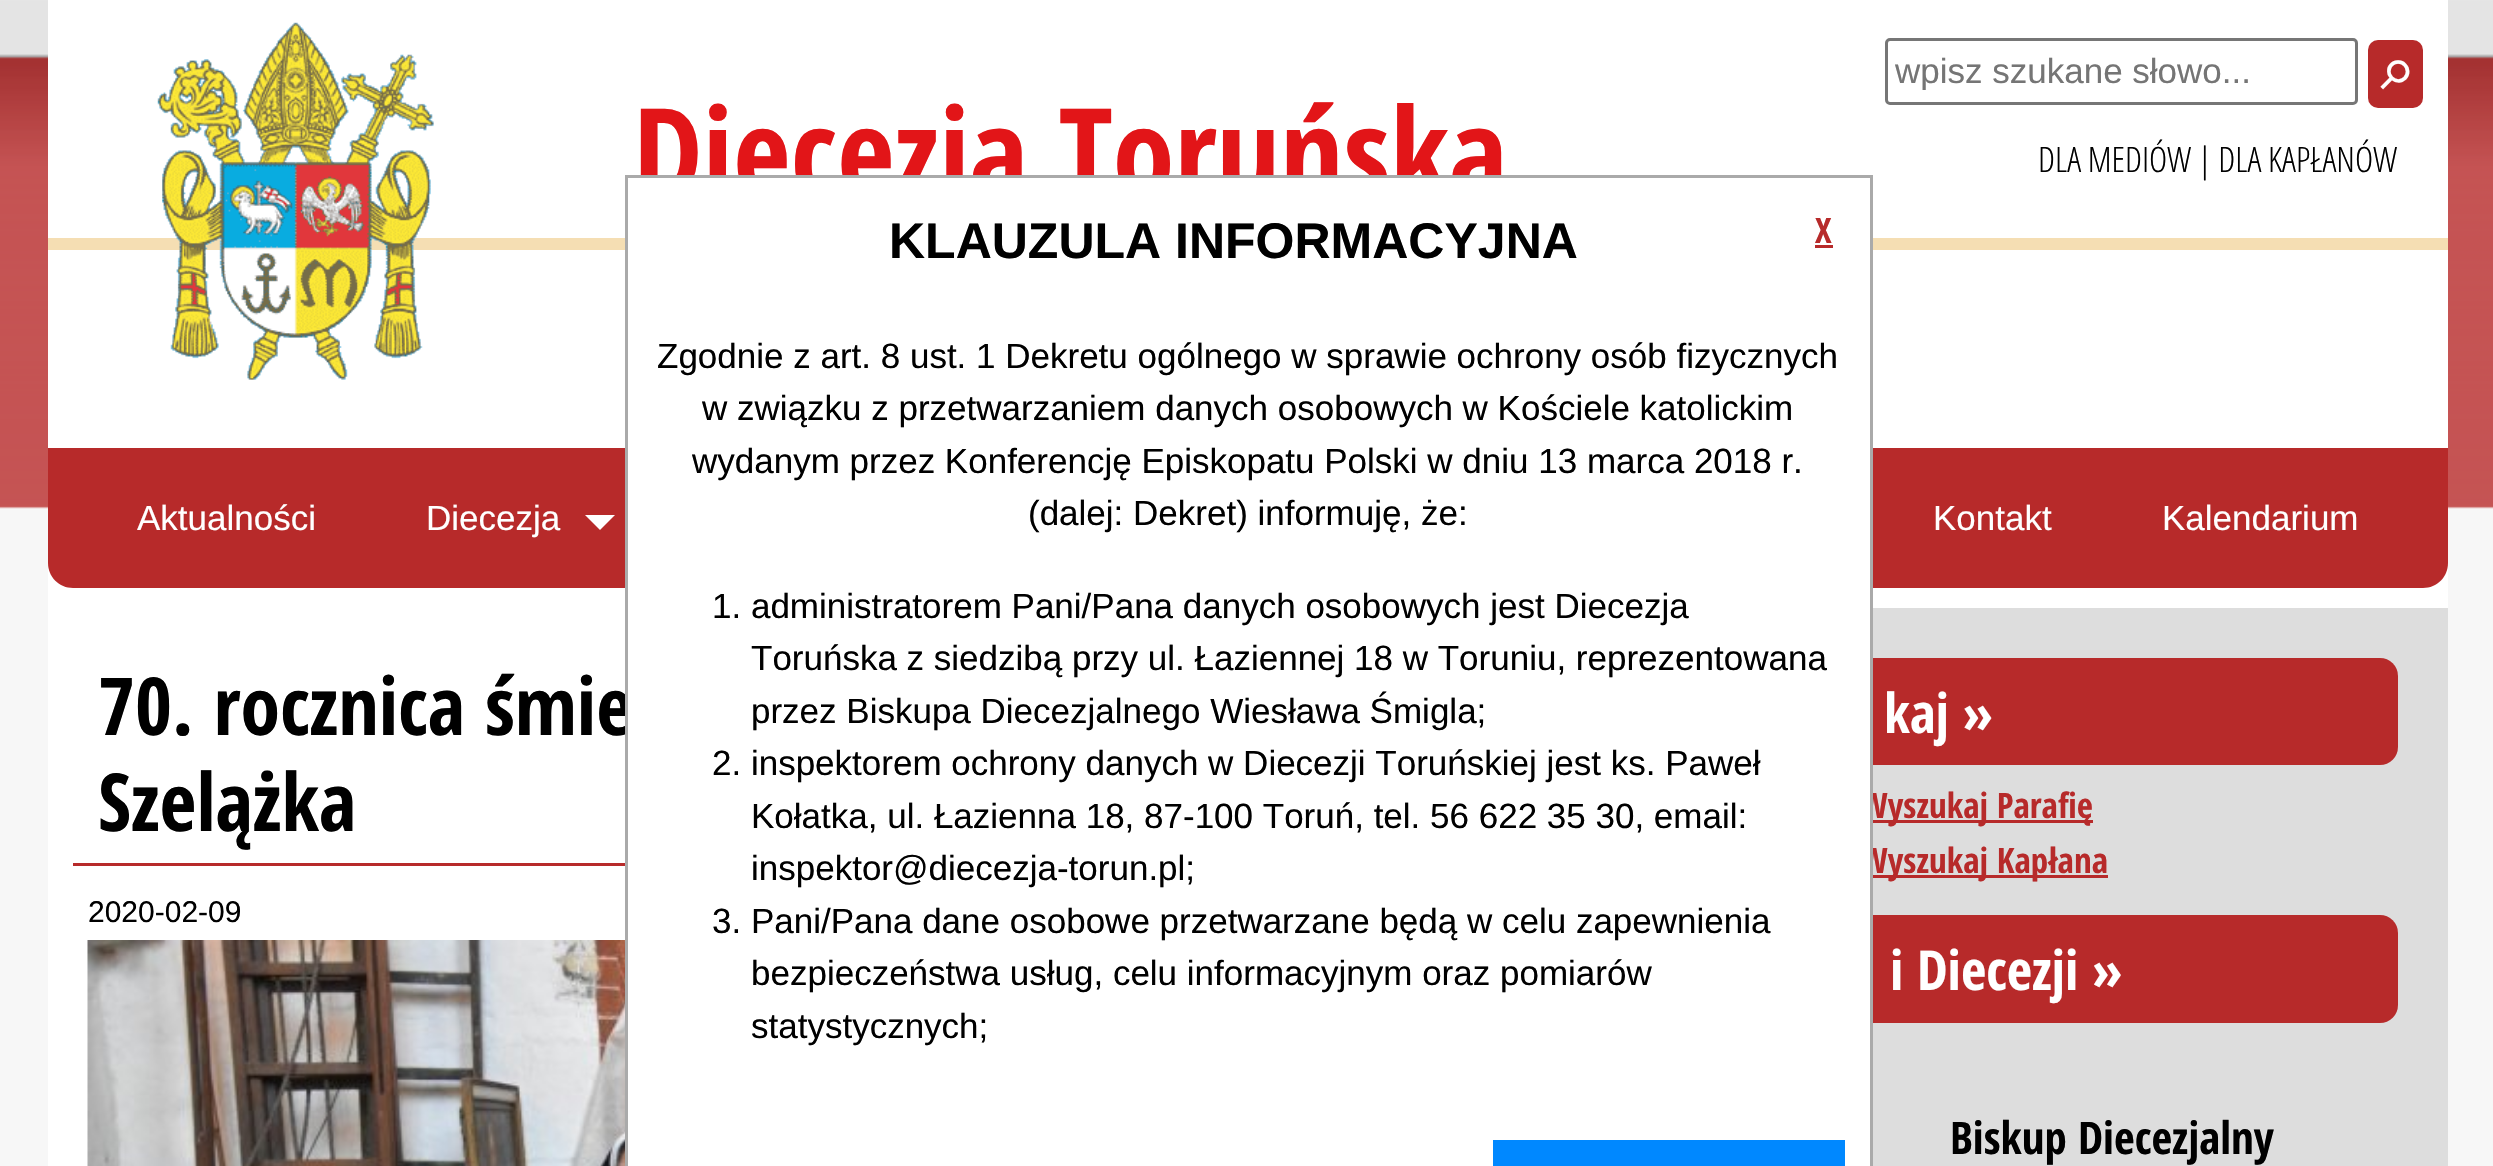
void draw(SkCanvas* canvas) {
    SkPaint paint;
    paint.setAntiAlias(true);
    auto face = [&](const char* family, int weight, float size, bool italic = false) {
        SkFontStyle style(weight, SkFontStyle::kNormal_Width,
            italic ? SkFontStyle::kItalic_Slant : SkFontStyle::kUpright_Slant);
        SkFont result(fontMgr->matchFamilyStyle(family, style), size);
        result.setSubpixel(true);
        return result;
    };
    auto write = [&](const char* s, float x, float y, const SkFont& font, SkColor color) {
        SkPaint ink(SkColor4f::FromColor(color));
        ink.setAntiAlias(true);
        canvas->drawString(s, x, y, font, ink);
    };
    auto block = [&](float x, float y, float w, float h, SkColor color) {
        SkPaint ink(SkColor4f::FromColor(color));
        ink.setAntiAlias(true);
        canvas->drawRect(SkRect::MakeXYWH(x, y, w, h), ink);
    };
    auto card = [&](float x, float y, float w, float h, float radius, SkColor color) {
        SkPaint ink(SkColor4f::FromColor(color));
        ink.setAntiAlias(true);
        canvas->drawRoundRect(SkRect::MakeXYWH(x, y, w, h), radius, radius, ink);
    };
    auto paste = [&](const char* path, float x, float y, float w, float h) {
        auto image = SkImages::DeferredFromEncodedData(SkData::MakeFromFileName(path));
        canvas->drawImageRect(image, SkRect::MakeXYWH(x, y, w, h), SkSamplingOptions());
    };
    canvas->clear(SkColorSetRGB(247, 247, 247));
    paste("pic1.png", 0, 0, 2493, 509);
    block(48, 0, 2400, 238, SK_ColorWHITE);
    block(48, 250, 2400, 916, SK_ColorWHITE);
    block(48, 238, 2400, 12, SkColorSetRGB(245, 222, 179));
    paste("pic2.png", 157, 22, 277, 358);
    auto kFont1 = face("Open Sans Condensed", 700, 125);
    write("Diecezja Toruńska", 633, 198, kFont1, SkColorSetRGB(226, 21, 24));
    paint.setStyle(SkPaint::kStroke_Style);
    paint.setStrokeWidth(3);
    paint.setColor(SkColorSetRGB(118, 118, 118));
    canvas->drawRoundRect(SkRect::MakeXYWH(1886.5f, 39.5f, 470, 64), 3.5f, 3.5f, paint);
    canvas->save();
    canvas->clipRect(SkRect::MakeXYWH(1895, 50, 453, 40));
    auto kFont2 = face("Liberation Sans", 400, 35);
    write("wpisz szukane słowo...", 1895, 83, kFont2, SkColorSetRGB(117, 117, 117));
    canvas->restore();
    card(2368, 40, 55, 68, 10, SkColorSetRGB(183, 42, 42));
    auto kFont3 = face("DejaVu Sans", 400, 40);
    canvas->save();
    canvas->rotate(45, 2375, 74);
    write("⚲", 2375, 74, kFont3, SK_ColorWHITE);
    canvas->restore();
    auto kFont4 = face("Open Sans Condensed", 300, 35);
    write("DLA MEDIÓW | DLA KAPŁANÓW", 2038, 172, kFont4, SK_ColorBLACK);
    paint.setStyle(SkPaint::kFill_Style);
    paint.setColor(SkColorSetRGB(183, 42, 42));
    canvas->drawPath(SkPathBuilder().moveTo(48, 448).lineTo(2448, 448).lineTo(2448, 563).cubicTo(2448, 577, 2437, 588, 2423, 588).lineTo(73, 588).cubicTo(59, 588, 48, 577, 48, 563).close().detach(), paint);
    auto kFont5 = face("Open Sans Condensed", 700, 80);
    write("70. rocznica śmie", 98, 735, kFont5, SK_ColorBLACK);
    block(1873, 608, 575, 558, SkColorSetRGB(221, 221, 221));
    card(1698, 658, 700, 107, 18, SkColorSetRGB(183, 42, 42));
    block(1873, 820, 220, 3, SkColorSetRGB(183, 42, 42));
    auto kFont6 = face("Open Sans Condensed", 700, 35);
    write("Wyszukaj Parafię", 1860, 818, kFont6, SkColorSetRGB(183, 42, 42));
    block(1873, 875, 235, 3, SkColorSetRGB(183, 42, 42));
    write("Wyszukaj Kapłana", 1860, 873, kFont6, SkColorSetRGB(183, 42, 42));
    card(1698, 915, 700, 108, 18, SkColorSetRGB(183, 42, 42));
    block(628, 178, 1242, 845, SK_ColorWHITE);
    paint.setStyle(SkPaint::kStroke_Style);
    paint.setColor(SkColorSetRGB(170, 170, 170));
    canvas->drawRect(SkRect::MakeXYWH(626.5f, 176.5f, 1245, 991), paint);
    auto kFont7 = face("Liberation Sans", 700, 50);
    write("KLAUZULA INFORMACYJNA", 889, 258, kFont7, SK_ColorBLACK);
    write("X", 1815, 243, kFont6, SkColorSetRGB(183, 42, 42));
    block(1815, 245, 18, 3, SkColorSetRGB(183, 42, 42));
    write("Zgodnie z art. 8 ust. 1 Dekretu ogólnego w sprawie ochrony osób fizycznych", 657, 368, kFont2, SK_ColorBLACK);
    write("w związku z przetwarzaniem danych osobowych w Kościele katolickim", 702, 420, kFont2, SK_ColorBLACK);
    write("wydanym przez Konferencję Episkopatu Polski w dniu 13 marca 2018 r.", 692, 473, kFont2, SK_ColorBLACK);
    write("(dalej: Dekret) informuję, że:", 1028, 525, kFont2, SK_ColorBLACK);
    write("1. administratorem Pani/Pana danych osobowych jest Diecezja", 712, 618, kFont2, SK_ColorBLACK);
    write("Toruńska z siedzibą przy ul. Łaziennej 18 w Toruniu, reprezentowana", 751, 670, kFont2, SK_ColorBLACK);
    write("przez Biskupa Diecezjalnego Wiesława Śmigla;", 751, 723, kFont2, SK_ColorBLACK);
    write("2. inspektorem ochrony danych w Diecezji Toruńskiej jest ks. Paweł", 712, 775, kFont2, SK_ColorBLACK);
    write("Kołatka, ul. Łazienna 18, 87-100 Toruń, tel. 56 622 35 30, email:", 751, 828, kFont2, SK_ColorBLACK);
    write("inspektor@diecezja-torun.pl;", 751, 880, kFont2, SK_ColorBLACK);
    write("3. Pani/Pana dane osobowe przetwarzane będą w celu zapewnienia", 712, 933, kFont2, SK_ColorBLACK);
    write("bezpieczeństwa usług, celu informacyjnym oraz pomiarów", 751, 985, kFont2, SK_ColorBLACK);
    write("statystycznych;", 751, 1038, kFont2, SK_ColorBLACK);
    block(1493, 1140, 352, 26, SkColorSetRGB(0, 136, 255));
    write("Aktualności", 137, 530, kFont2, SK_ColorWHITE);
    write("Diecezja", 426, 530, kFont2, SK_ColorWHITE);
    paint.setStyle(SkPaint::kFill_Style);
    paint.setColor(SK_ColorWHITE);
    canvas->drawPath(SkPathBuilder().moveTo(585, 515).lineTo(615, 515).lineTo(600, 530).close().detach(), paint);
    write("Kontakt", 1933, 530, kFont2, SK_ColorWHITE);
    write("Kalendarium", 2162, 530, kFont2, SK_ColorWHITE);
    block(73, 863, 552, 3, SkColorSetRGB(183, 42, 42));
    write("Szelążka", 98, 831, kFont5, SK_ColorBLACK);
    auto kFont8 = face("Liberation Sans", 400, 30);
    write("2020-02-09", 88, 922, kFont8, SK_ColorBLACK);
    paste("pic3.png", 87, 940, 538, 226);
    auto kFont9 = face("Open Sans Condensed", 700, 55);
    write("kaj »", 1884, 733, kFont9, SK_ColorWHITE);
    write("i Diecezji »", 1890, 990, kFont9, SK_ColorWHITE);
    auto kFont10 = face("Open Sans Condensed", 700, 45);
    write("Biskup Diecezjalny", 1950, 1154, kFont10, SK_ColorBLACK);
}
